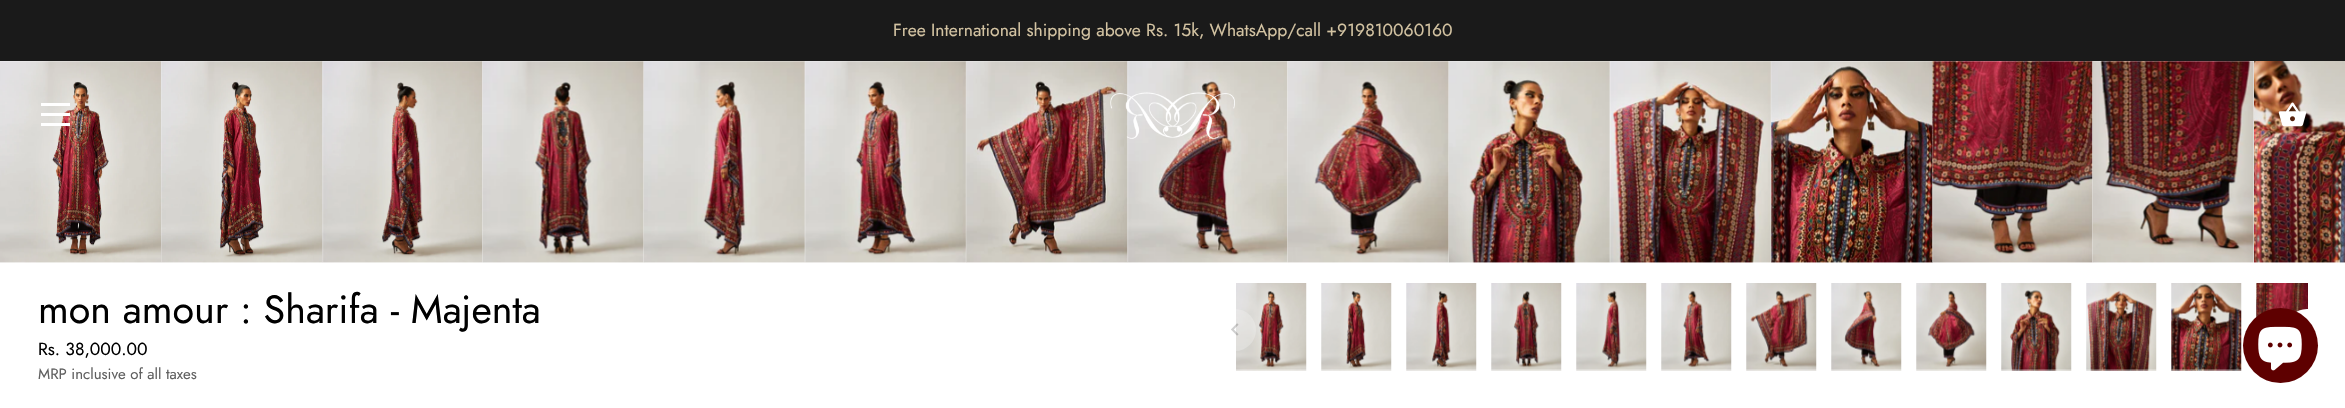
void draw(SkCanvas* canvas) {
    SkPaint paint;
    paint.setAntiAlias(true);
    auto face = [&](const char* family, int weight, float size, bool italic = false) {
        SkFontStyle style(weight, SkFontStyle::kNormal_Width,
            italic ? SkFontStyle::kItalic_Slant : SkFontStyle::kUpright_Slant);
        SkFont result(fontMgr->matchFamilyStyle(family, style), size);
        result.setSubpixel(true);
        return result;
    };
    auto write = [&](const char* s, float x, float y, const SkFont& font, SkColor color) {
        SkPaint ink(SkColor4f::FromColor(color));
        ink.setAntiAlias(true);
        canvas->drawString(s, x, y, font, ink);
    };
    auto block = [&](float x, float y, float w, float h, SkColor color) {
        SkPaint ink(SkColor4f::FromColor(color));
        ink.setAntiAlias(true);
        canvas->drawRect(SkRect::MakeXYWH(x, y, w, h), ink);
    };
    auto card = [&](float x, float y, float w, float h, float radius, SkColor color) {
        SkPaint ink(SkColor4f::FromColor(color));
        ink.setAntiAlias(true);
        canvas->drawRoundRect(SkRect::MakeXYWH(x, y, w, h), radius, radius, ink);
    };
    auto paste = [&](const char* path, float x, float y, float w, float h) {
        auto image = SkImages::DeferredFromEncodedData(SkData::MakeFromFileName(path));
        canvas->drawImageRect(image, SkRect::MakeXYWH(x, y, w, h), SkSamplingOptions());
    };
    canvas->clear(SK_ColorWHITE);
    block(0, 0, 2345, 61, SkColorSetRGB(26, 26, 26));
    auto kFont1 = face("Jost", 400, 17.5f);
    write("Free International shipping above Rs. 15k, WhatsApp/call +919810060160", 893, 36, kFont1, SkColorSetRGB(211, 195, 162));
    paste("pic3.png", 0, 61, 162, 202);
    block(41, 103, 29, 3, SK_ColorWHITE);
    block(41, 113, 29, 3, SK_ColorWHITE);
    block(41, 123, 29, 3, SK_ColorWHITE);
    paste("pic4.png", 161, 61, 162, 202);
    paste("pic5.png", 322, 61, 162, 202);
    paste("pic6.png", 482, 61, 163, 202);
    paste("pic7.png", 643, 61, 163, 202);
    paste("pic8.png", 804, 61, 163, 202);
    paste("pic9.png", 966, 61, 162, 202);
    paste("pic10.png", 1127, 61, 162, 202);
    paste("pic1.png", 1110, 92, 125, 47);
    paste("pic11.png", 1287, 61, 163, 202);
    paste("pic12.png", 1448, 61, 163, 202);
    paste("pic13.png", 1609, 61, 163, 202);
    paste("pic14.png", 1771, 61, 162, 202);
    paste("pic15.png", 1932, 61, 162, 202);
    paste("pic16.png", 2092, 61, 163, 202);
    paste("pic17.png", 2254, 61, 91, 202);
    paste("pic2.png", 2278, 102, 29, 25);
    auto kFont2 = face("Jost", 400, 39.4f);
    write("mon amour : Sharifa - Majenta", 38, 323, kFont2, SK_ColorBLACK);
    write("Rs. 38,000.00", 38, 355, kFont1, SK_ColorBLACK);
    auto kFont3 = face("Jost", 400, 15);
    write("MRP inclusive of all taxes", 38, 379, kFont3, SkColorSetRGB(96, 96, 96));
    paste("pic19.png", 1236, 283, 71, 88);
    paint.setColor(SkColorSetARGB(64, 255, 255, 255));
    canvas->drawCircle(1235, 330, 21, paint);
    paste("pic18.png", 1231, 323, 8, 13);
    paste("pic20.png", 1321, 283, 71, 88);
    paste("pic21.png", 1406, 283, 71, 88);
    paste("pic22.png", 1491, 283, 71, 88);
    paste("pic23.png", 1576, 283, 71, 88);
    paste("pic24.png", 1661, 283, 71, 88);
    paste("pic25.png", 1746, 283, 71, 88);
    paste("pic26.png", 1831, 283, 71, 88);
    paste("pic27.png", 1916, 283, 71, 88);
    paste("pic28.png", 2001, 283, 71, 88);
    paste("pic29.png", 2086, 283, 71, 88);
    paste("pic30.png", 2171, 283, 71, 88);
    paste("pic31.png", 2256, 283, 52, 35);
    card(2286, 309, 43, 42, 21, SK_ColorWHITE);
    paint.setColor(SkColorSetRGB(94, 0, 0));
    canvas->drawCircle(2280.5f, 345.5f, 37.5f, paint);
    paste("pic32.png", 2258, 326, 44, 45);
}
